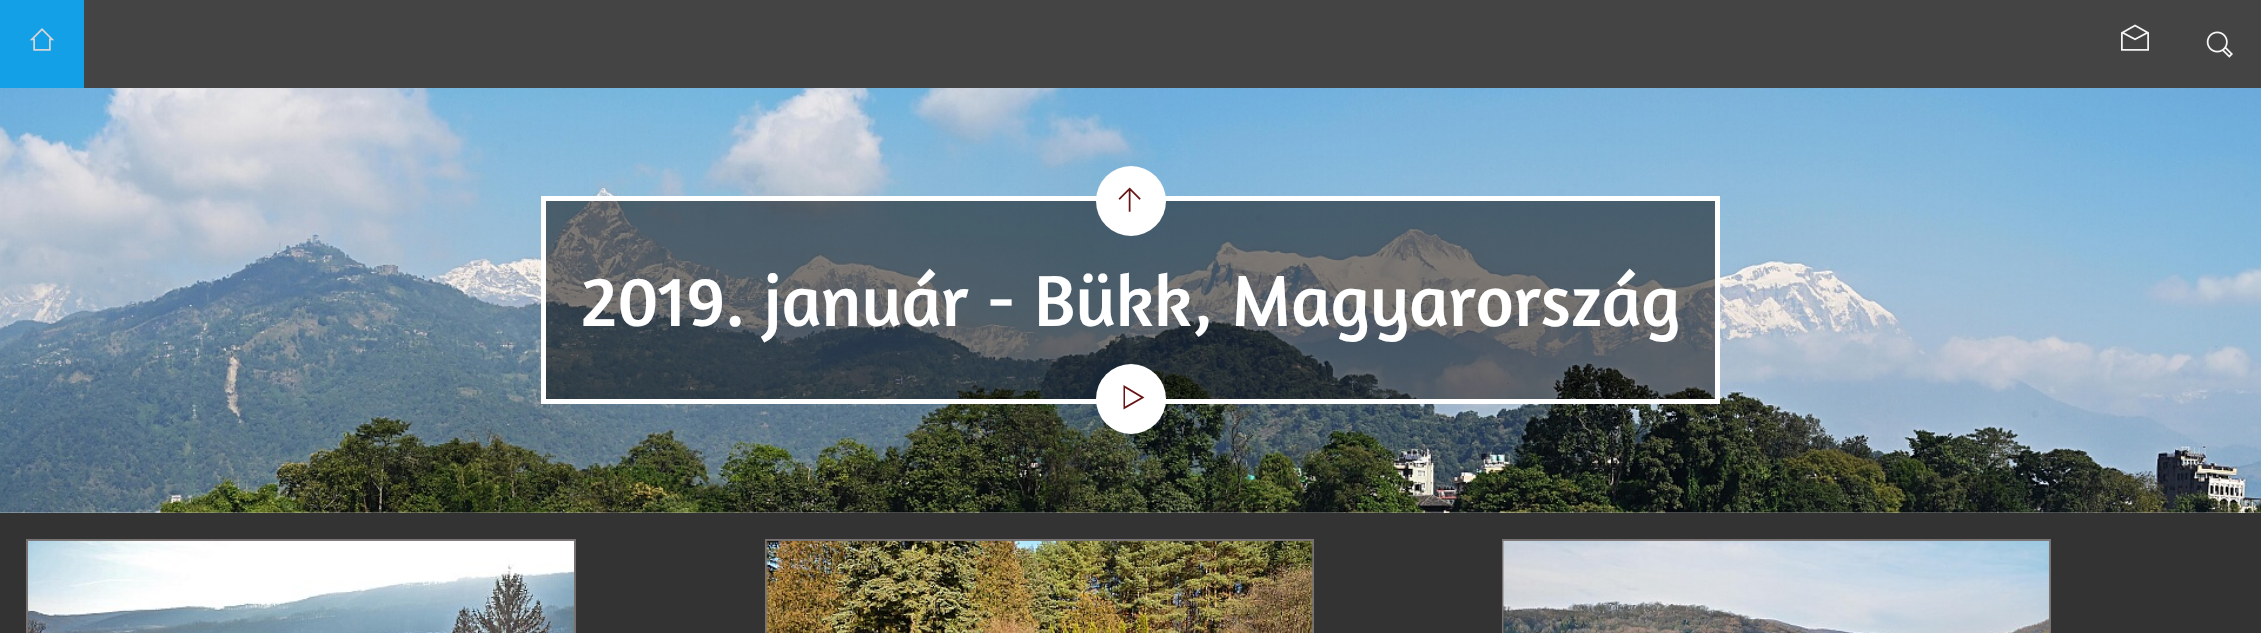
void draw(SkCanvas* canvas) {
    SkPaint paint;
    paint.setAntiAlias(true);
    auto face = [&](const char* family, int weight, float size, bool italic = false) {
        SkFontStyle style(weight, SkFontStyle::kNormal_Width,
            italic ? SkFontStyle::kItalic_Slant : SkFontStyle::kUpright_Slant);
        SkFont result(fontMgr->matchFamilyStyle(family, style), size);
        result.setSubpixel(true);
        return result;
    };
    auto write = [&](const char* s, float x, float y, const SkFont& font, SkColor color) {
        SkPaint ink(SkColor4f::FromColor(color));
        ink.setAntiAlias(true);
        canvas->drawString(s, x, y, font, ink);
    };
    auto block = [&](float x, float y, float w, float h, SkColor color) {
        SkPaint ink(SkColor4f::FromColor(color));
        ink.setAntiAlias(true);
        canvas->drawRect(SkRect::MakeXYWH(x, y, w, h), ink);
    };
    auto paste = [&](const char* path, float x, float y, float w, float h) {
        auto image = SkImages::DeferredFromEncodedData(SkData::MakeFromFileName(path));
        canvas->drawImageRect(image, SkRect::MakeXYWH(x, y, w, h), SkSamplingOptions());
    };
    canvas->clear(SK_ColorWHITE);
    block(84, 0, 2177, 88, SkColorSetRGB(68, 68, 68));
    block(0, 0, 84, 88, SkColorSetRGB(19, 160, 230));
    paste("pic1.png", 29, 28, 26, 23);
    paste("pic2.png", 2121, 24, 28, 27);
    paste("pic3.png", 2206, 31, 27, 27);
    paste("pic4.png", 0, 88, 2261, 425);
    paint.setColor(SkColorSetARGB(128, 0, 0, 0));
    canvas->drawRect(SkRect::MakeXYWH(543.5f, 198.5f, 1174, 203), paint);
    paint.setStyle(SkPaint::kStroke_Style);
    paint.setStrokeWidth(5);
    paint.setColor(SK_ColorWHITE);
    canvas->drawRect(SkRect::MakeXYWH(543.5f, 198.5f, 1174, 203), paint);
    paint.setStyle(SkPaint::kFill_Style);
    canvas->drawCircle(1131, 201, 35, paint);
    paste("pic5.png", 1118, 187, 23, 25);
    auto kFont1 = face("Amaranth", 400, 73.5f);
    write("2019. január - Bükk, Magyarország", 581, 326, kFont1, SK_ColorWHITE);
    canvas->drawCircle(1131, 399, 35, paint);
    paint.setColor(SkColorSetRGB(102, 20, 20));
    canvas->drawPath(SkPathBuilder().moveTo(1125, 388).lineTo(1141, 397.5f).lineTo(1125, 406.5f).close().moveTo(1123.5f, 385).lineTo(1123.5f, 409.5f).lineTo(1144.5f, 397.5f).close().detach(), paint);
    block(0, 513, 2261, 120, SkColorSetRGB(51, 51, 51));
    paint.setStyle(SkPaint::kStroke_Style);
    paint.setStrokeWidth(2);
    paint.setColor(SkColorSetRGB(120, 114, 114));
    canvas->drawRect(SkRect::MakeXYWH(27, 540, 548, 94), paint);
    paste("pic6.png", 28, 540, 546, 93);
    canvas->drawRect(SkRect::MakeXYWH(766, 540, 547, 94), paint);
    paste("pic7.png", 766, 540, 547, 93);
    canvas->drawRect(SkRect::MakeXYWH(1503, 540, 547, 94), paint);
    paste("pic8.png", 1503, 540, 547, 93);
}
